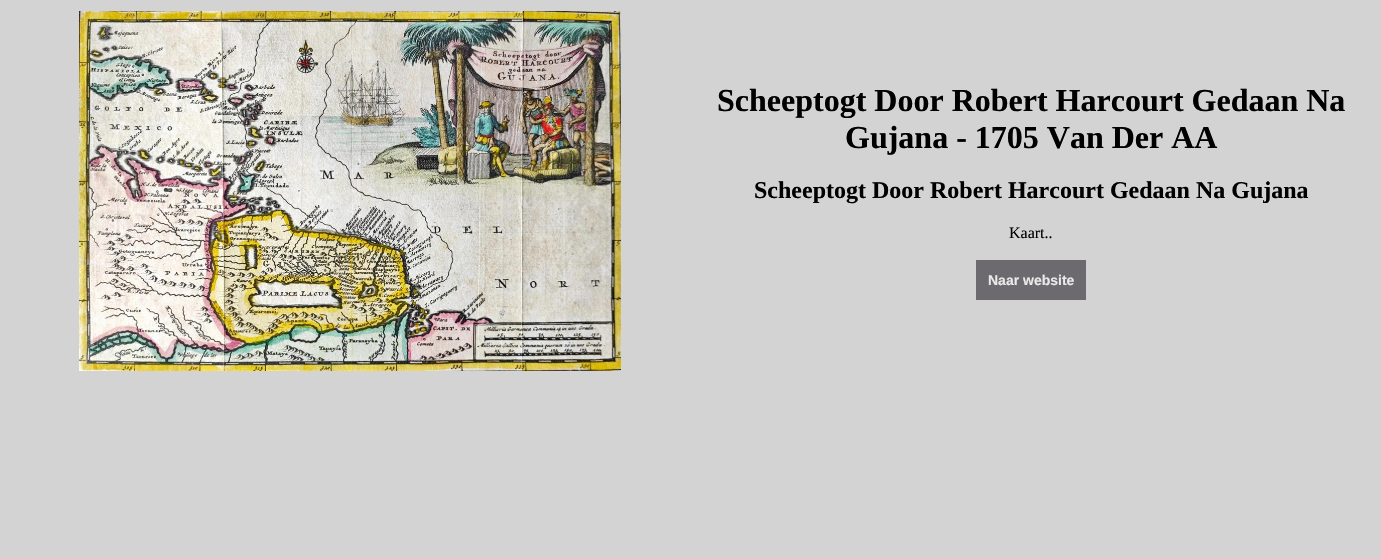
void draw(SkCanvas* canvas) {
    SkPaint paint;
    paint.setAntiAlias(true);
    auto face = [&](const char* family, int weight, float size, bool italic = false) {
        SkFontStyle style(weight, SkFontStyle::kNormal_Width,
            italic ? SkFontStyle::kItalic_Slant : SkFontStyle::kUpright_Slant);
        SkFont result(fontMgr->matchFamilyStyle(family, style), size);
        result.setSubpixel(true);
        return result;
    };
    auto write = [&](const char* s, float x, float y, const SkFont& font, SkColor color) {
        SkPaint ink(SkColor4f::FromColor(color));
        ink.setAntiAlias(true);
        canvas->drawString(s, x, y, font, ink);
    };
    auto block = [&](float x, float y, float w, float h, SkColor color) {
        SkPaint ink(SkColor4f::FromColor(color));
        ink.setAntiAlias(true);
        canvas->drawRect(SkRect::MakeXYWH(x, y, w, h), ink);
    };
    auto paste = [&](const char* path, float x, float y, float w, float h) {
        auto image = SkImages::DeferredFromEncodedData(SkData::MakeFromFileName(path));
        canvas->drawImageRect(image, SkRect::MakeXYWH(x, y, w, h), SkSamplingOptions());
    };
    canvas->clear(SkColorSetRGB(211, 211, 211));
    paste("pic1.png", 79, 11, 542, 360);
    auto kFont1 = face("Liberation Serif", 700, 32);
    write("Scheeptogt Door Robert Harcourt Gedaan Na", 717, 111, kFont1, SK_ColorBLACK);
    write("Gujana - 1705 Van Der AA", 845, 148, kFont1, SK_ColorBLACK);
    auto kFont2 = face("Liberation Serif", 700, 24);
    write("Scheeptogt Door Robert Harcourt Gedaan Na Gujana", 754, 198, kFont2, SK_ColorBLACK);
    auto kFont3 = face("Liberation Serif", 400, 16);
    write("Kaart..", 1009, 238, kFont3, SK_ColorBLACK);
    block(976, 260, 110, 40, SkColorSetRGB(108, 106, 110));
    auto kFont4 = face("Liberation Sans", 700, 14);
    write("Naar website", 988, 285, kFont4, SkColorSetRGB(233, 233, 233));
}
